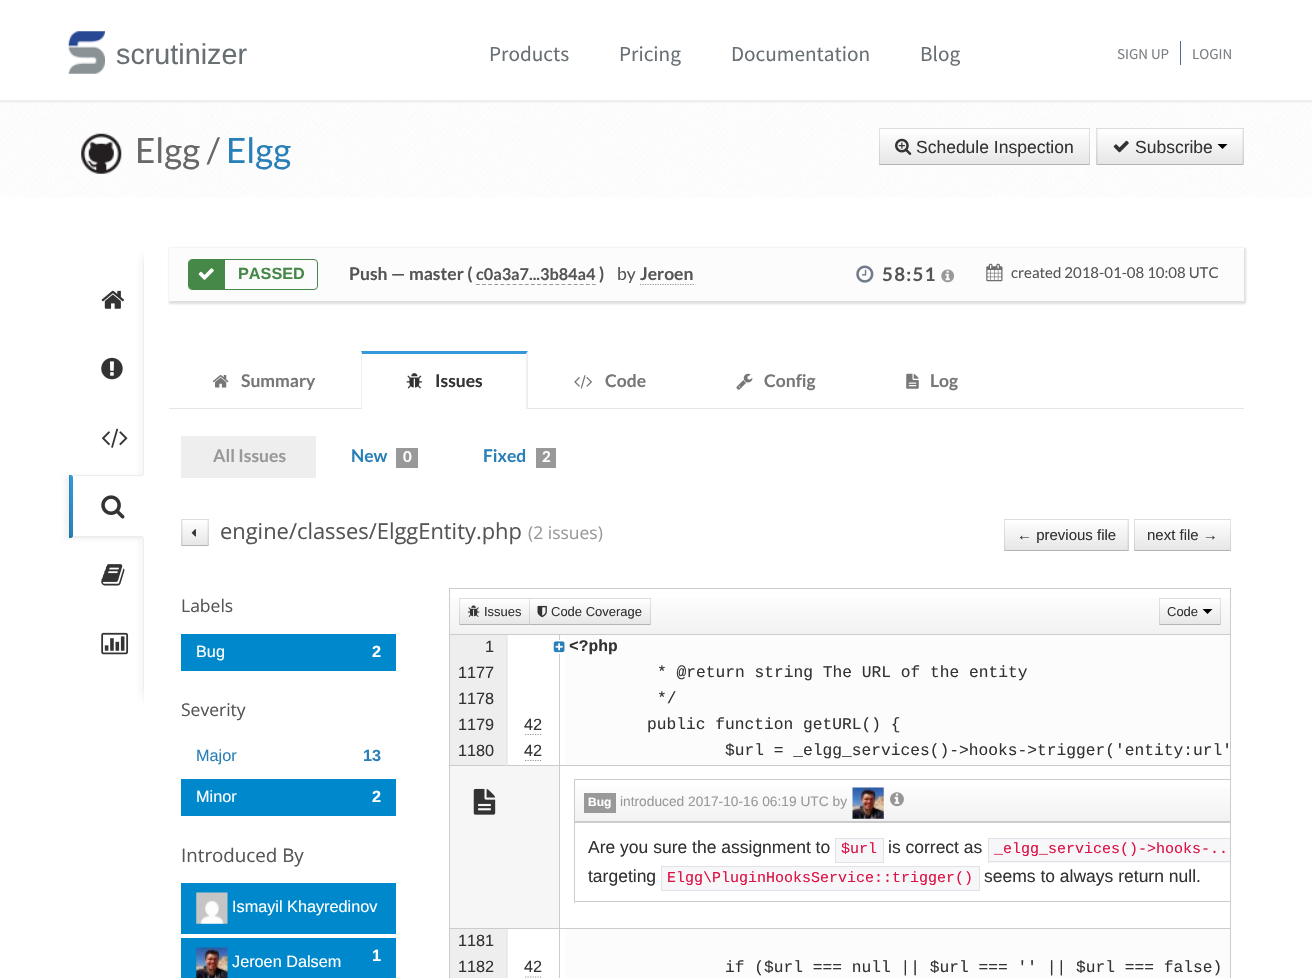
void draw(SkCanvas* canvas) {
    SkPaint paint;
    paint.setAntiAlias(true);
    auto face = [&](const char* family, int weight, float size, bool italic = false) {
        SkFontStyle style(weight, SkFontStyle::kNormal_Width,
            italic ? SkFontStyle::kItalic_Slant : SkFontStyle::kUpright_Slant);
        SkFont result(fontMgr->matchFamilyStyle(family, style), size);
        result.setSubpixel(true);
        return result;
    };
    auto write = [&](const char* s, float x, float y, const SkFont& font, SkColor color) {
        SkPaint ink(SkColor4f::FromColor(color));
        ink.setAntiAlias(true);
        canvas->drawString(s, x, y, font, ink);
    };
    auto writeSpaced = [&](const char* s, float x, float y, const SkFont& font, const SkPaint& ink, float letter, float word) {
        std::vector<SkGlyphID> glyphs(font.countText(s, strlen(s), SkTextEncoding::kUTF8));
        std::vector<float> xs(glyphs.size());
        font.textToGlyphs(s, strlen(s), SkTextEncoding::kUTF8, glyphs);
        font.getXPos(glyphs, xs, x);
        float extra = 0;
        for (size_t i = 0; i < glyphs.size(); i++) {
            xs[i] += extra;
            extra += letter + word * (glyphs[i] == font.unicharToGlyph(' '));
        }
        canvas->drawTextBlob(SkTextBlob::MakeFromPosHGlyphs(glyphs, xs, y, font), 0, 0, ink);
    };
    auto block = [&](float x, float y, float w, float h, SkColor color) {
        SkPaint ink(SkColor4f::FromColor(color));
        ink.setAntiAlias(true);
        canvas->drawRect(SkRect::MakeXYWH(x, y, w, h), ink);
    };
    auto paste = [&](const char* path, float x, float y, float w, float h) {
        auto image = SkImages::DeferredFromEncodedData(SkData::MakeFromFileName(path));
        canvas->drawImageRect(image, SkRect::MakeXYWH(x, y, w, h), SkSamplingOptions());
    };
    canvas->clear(SK_ColorWHITE);
    block(0, 100, 1312, 3, SkColorSetRGB(238, 238, 238));
    paste("pic1.png", 68, 31, 37, 43);
    auto kFont1 = face("Liberation Sans", 400, 28.75f);
    write("scrutinizer", 116, 64, kFont1, SkColorSetRGB(104, 112, 116));
    auto kFont2 = face("Source Sans Pro", 400, 21.25f);
    write("Products", 489, 61, kFont2, SkColorSetRGB(104, 112, 116));
    write("Pricing", 619, 61, kFont2, SkColorSetRGB(104, 112, 116));
    write("Documentation", 731, 61, kFont2, SkColorSetRGB(104, 112, 116));
    write("Blog", 920, 61, kFont2, SkColorSetRGB(104, 112, 116));
    auto kFont3 = face("Source Sans Pro", 400, 15);
    write("SIGN UP", 1117, 59, kFont3, SkColorSetRGB(124, 128, 130));
    block(1180, 41, 1, 24, SkColorSetRGB(83, 105, 156));
    write("LOGIN", 1192, 59, kFont3, SkColorSetRGB(124, 128, 130));
    paste("pic2.png", 0, 102, 1312, 95);
    paste("pic3.png", 81, 133, 41, 41);
    auto kFont4 = face("Lato", 400, 35);
    write("Elgg /", 135, 163, kFont4, SkColorSetRGB(104, 104, 104));
    write("Elgg", 226, 163, kFont4, SkColorSetRGB(41, 128, 185));
    block(879, 128, 211, 37, SkColorSetRGB(245, 245, 245));
    {
        const SkColor colors[] = {SK_ColorWHITE, SkColorSetRGB(230, 230, 230)};
        const float stops[] = {0, 1};
        const SkPoint ends[] = {{984, 129}, {984, 164}};
        paint.setShader(SkGradientShader::MakeLinear(ends, colors, stops, 2, SkTileMode::kClamp));
        paint.setAlpha(255);
    }
    canvas->drawRect(SkRect::MakeXYWH(879, 129, 211, 35), paint);
    paint.setShader(nullptr);
    paint.setColor(SkColorSetRGB(221, 221, 221));
    canvas->drawPath(SkPathBuilder().moveTo(879, 128).lineTo(1090, 128).lineTo(1089, 129).lineTo(880, 129).close().detach(), paint);
    paint.setColor(SkColorSetARGB(26, 0, 0, 0));
    canvas->drawPath(SkPathBuilder().moveTo(1090, 127.5f).lineTo(1090, 165).lineTo(1089, 164).lineTo(1089, 129).close().detach(), paint);
    paint.setColor(SkColorSetRGB(179, 179, 179));
    canvas->drawPath(SkPathBuilder().moveTo(1090, 165).lineTo(879, 165).lineTo(880, 164).lineTo(1089, 164).close().detach(), paint);
    paint.setColor(SkColorSetARGB(26, 0, 0, 0));
    canvas->drawPath(SkPathBuilder().moveTo(879, 165).lineTo(879, 127.5f).lineTo(880, 129).lineTo(880, 164).close().detach(), paint);
    paste("pic4.png", 895, 138, 17, 17);
    auto kFont5 = face("Liberation Sans", 400, 17.5f);
    write("Schedule Inspection", 916, 153, kFont5, SkColorSetRGB(51, 51, 51));
    block(1096, 128, 148, 37, SkColorSetRGB(245, 245, 245));
    {
        const SkColor colors[] = {SK_ColorWHITE, SkColorSetRGB(230, 230, 230)};
        const float stops[] = {0, 1};
        const SkPoint ends[] = {{1170, 129}, {1170, 164}};
        paint.setShader(SkGradientShader::MakeLinear(ends, colors, stops, 2, SkTileMode::kClamp));
        paint.setAlpha(255);
    }
    canvas->drawRect(SkRect::MakeXYWH(1096, 129, 148, 35), paint);
    paint.setShader(nullptr);
    paint.setColor(SkColorSetRGB(221, 221, 221));
    canvas->drawPath(SkPathBuilder().moveTo(1096, 128).lineTo(1244, 128).lineTo(1242, 129).lineTo(1098, 129).close().detach(), paint);
    paint.setColor(SkColorSetARGB(26, 0, 0, 0));
    canvas->drawPath(SkPathBuilder().moveTo(1244, 127.5f).lineTo(1244, 165).lineTo(1242.5f, 164).lineTo(1242.5f, 129).close().detach(), paint);
    paint.setColor(SkColorSetRGB(179, 179, 179));
    canvas->drawPath(SkPathBuilder().moveTo(1244, 165).lineTo(1096, 165).lineTo(1098, 164).lineTo(1242, 164).close().detach(), paint);
    paint.setColor(SkColorSetARGB(26, 0, 0, 0));
    canvas->drawPath(SkPathBuilder().moveTo(1096, 165).lineTo(1096, 127.5f).lineTo(1097.5f, 129).lineTo(1097.5f, 164).close().detach(), paint);
    paste("pic5.png", 1113, 140, 16, 13);
    write("Subscribe", 1135, 153, kFont5, SkColorSetRGB(51, 51, 51));
    paint.setColor(SK_ColorBLACK);
    canvas->drawPath(SkPathBuilder().moveTo(1217.5f, 144).lineTo(1227.5f, 144).lineTo(1222.5f, 149).close().detach(), paint);
    {
        const SkColor colors[] = {SkColorSetRGB(246, 246, 246), SK_ColorWHITE};
        const float stops[] = {0, 0.13f};
        const SkPoint ends[] = {{144, 477}, {69, 477}};
        paint.setShader(SkGradientShader::MakeLinear(ends, colors, stops, 2, SkTileMode::kClamp));
        paint.setAlpha(255);
    }
    canvas->drawRect(SkRect::MakeXYWH(137, 248, 6, 458), paint);
    block(143, 248, 1, 458, SkColorSetRGB(238, 238, 238));
    {
        const SkColor colors[] = {SK_ColorWHITE, SkColorSetARGB(0, 255, 255, 255)};
        const float stops[] = {0, 1};
        const SkPoint ends[] = {{106, 248}, {106, 266}};
        paint.setShader(SkGradientShader::MakeLinear(ends, colors, stops, 2, SkTileMode::kClamp));
        paint.setAlpha(255);
    }
    canvas->drawRect(SkRect::MakeXYWH(137, 248, 7, 15), paint);
    paste("pic6.png", 101, 290, 23, 19);
    paste("pic7.png", 101, 357, 22, 23);
    paste("pic8.png", 101, 428, 27, 20);
    paint.setShader(nullptr);
    paint.setColor(SkColorSetARGB(13, 0, 0, 0));
    paint.setMaskFilter(SkMaskFilter::MakeBlur(kNormal_SkBlurStyle, 2));
    canvas->drawRect(SkRect::MakeXYWH(65, 476, 75, 63), paint);
    paint.setMaskFilter(nullptr);
    block(72, 475, 72, 63, SK_ColorWHITE);
    paint.setColor(SkColorSetRGB(238, 238, 238));
    canvas->drawPath(SkPathBuilder().moveTo(69, 475).lineTo(144, 475).lineTo(142, 476).lineTo(70, 476).close().detach(), paint);
    canvas->drawPath(SkPathBuilder().moveTo(144, 538).lineTo(69, 538).lineTo(70, 536).lineTo(142, 536).close().detach(), paint);
    {
        const SkColor colors[] = {SkColorSetRGB(52, 152, 219), SkColorSetRGB(41, 128, 185)};
        const float stops[] = {0, 1};
        const SkPoint ends[] = {{71, 475}, {71, 538}};
        paint.setShader(SkGradientShader::MakeLinear(ends, colors, stops, 2, SkTileMode::kClamp));
        paint.setAlpha(255);
    }
    canvas->drawPath(SkPathBuilder().moveTo(69, 475).lineTo(70.5f, 475).cubicTo(72, 475, 73, 476, 73, 477.5f).lineTo(73, 535.5f).cubicTo(73, 537, 72, 538, 70.5f, 538).lineTo(69, 538).close().detach(), paint);
    paint.setShader(nullptr);
    paint.setColor(SkColorSetARGB(26, 0, 0, 0));
    canvas->drawPath(SkPathBuilder().moveTo(69, 475).lineTo(69, 538).cubicTo(71, 538, 73, 538, 73, 535).lineTo(70, 536).lineTo(70, 475).close().detach(), paint);
    paste("pic9.png", 101, 495, 24, 24);
    paste("pic10.png", 101, 564, 24, 22);
    paste("pic11.png", 101, 632, 28, 23);
    {
        const SkColor colors[] = {SK_ColorWHITE, SkColorSetARGB(0, 255, 255, 255)};
        const float stops[] = {0, 1};
        const SkPoint ends[] = {{106, 706}, {106, 688}};
        paint.setShader(SkGradientShader::MakeLinear(ends, colors, stops, 2, SkTileMode::kClamp));
        paint.setAlpha(255);
    }
    canvas->drawRect(SkRect::MakeXYWH(137, 691, 7, 15), paint);
    paint.setShader(nullptr);
    paint.setColor(SkColorSetARGB(38, 34, 36, 38));
    paint.setMaskFilter(SkMaskFilter::MakeBlur(kNormal_SkBlurStyle, 1));
    canvas->drawRect(SkRect::MakeXYWH(169, 248, 1077, 56), paint);
    paint.setMaskFilter(nullptr);
    block(169, 248, 1075, 53, SkColorSetRGB(252, 252, 252));
    paint.setStyle(SkPaint::kStroke_Style);
    paint.setStrokeWidth(1);
    paint.setColor(SkColorSetRGB(70, 136, 71));
    canvas->drawRoundRect(SkRect::MakeXYWH(188.5f, 259.5f, 129, 30), 3.5f, 3.5f, paint);
    paint.setStyle(SkPaint::kFill_Style);
    canvas->drawPath(SkPathBuilder().moveTo(191.5f, 260).lineTo(225, 260).lineTo(225, 289).lineTo(191.5f, 289).cubicTo(190, 289, 189, 288, 189, 286.5f).lineTo(189, 262.5f).cubicTo(189, 261, 190, 260, 191.5f, 260).close().detach(), paint);
    paste("pic12.png", 198, 268, 16, 12);
    auto kFont6 = face("Liberation Sans", 700, 16.25f);
    write("PASSED", 238, 279, kFont6, SkColorSetRGB(70, 136, 71));
    auto kFont7 = face("Lato", 700, 17.5f);
    write("Push — master (", 349, 280, kFont7, SkColorSetRGB(85, 85, 85));
    auto kFont8 = face("Lato", 700, 16.25f);
    write("c0a3a7...3b84a4", 476, 280, kFont8, SkColorSetRGB(85, 85, 85));
    paint.setStyle(SkPaint::kStroke_Style);
    paint.setStrokeWidth(1.2f);
    paint.setColor(SkColorSetRGB(153, 153, 153));
    paint.setPathEffect(SkDashPathEffect::Make({{3.75f, 2.36f}}, 0));
    canvas->drawPath(SkPathBuilder().moveTo(476, 284.5f).lineTo(596, 284.5f).detach(), paint);
    paint.setPathEffect(nullptr);
    write(")", 599, 280, kFont7, SkColorSetRGB(85, 85, 85));
    auto kFont9 = face("Lato", 400, 17.5f);
    write("by", 617, 280, kFont9, SkColorSetRGB(85, 85, 85));
    write("Jeroen", 640, 280, kFont7, SkColorSetRGB(85, 85, 85));
    paint.setPathEffect(SkDashPathEffect::Make({{1.25f, 1.25f}}, 0));
    canvas->drawPath(SkPathBuilder().moveTo(640, 284.5f).lineTo(694, 284.5f).detach(), paint);
    paint.setPathEffect(nullptr);
    paste("pic13.png", 856, 265, 18, 18);
    auto kFont10 = face("Lato", 700, 18.75f);
    paint.setStyle(SkPaint::kFill_Style);
    paint.setColor(SkColorSetRGB(85, 85, 85));
    writeSpaced("58:51", 882, 281, kFont10, paint, 1.25f, 0);
    paste("pic14.png", 941, 269, 14, 14);
    paste("pic15.png", 986, 263, 17, 19);
    auto kFont11 = face("Lato", 400, 15);
    write("created 2018-01-08 10:08 UTC", 1011, 278, kFont11, SkColorSetRGB(85, 85, 85));
    block(169, 408, 1075, 1, SkColorSetRGB(229, 229, 229));
    paste("pic16.png", 212, 375, 17, 13);
    write("Summary", 241, 387, kFont7, SkColorSetRGB(119, 119, 119));
    block(361, 408, 167, 1, SK_ColorWHITE);
    paint.setColor(SkColorSetRGB(52, 152, 219));
    canvas->drawPath(SkPathBuilder().moveTo(361, 351).lineTo(528, 351).lineTo(526, 354).lineTo(362, 354).close().detach(), paint);
    paint.setColor(SkColorSetRGB(238, 238, 238));
    canvas->drawPath(SkPathBuilder().moveTo(528, 351).lineTo(528, 409).lineTo(526, 409).lineTo(526, 354).close().detach(), paint);
    canvas->drawPath(SkPathBuilder().moveTo(361, 409).lineTo(361, 351).lineTo(362, 354).lineTo(362, 409).close().detach(), paint);
    paste("pic17.png", 406, 373, 17, 16);
    write("Issues", 435, 387, kFont7, SkColorSetRGB(51, 51, 51));
    paste("pic18.png", 574, 375, 18, 14);
    write("Code", 605, 387, kFont7, SkColorSetRGB(119, 119, 119));
    paste("pic19.png", 736, 373, 17, 17);
    write("Config", 764, 387, kFont7, SkColorSetRGB(119, 119, 119));
    paste("pic20.png", 906, 373, 13, 16);
    write("Log", 930, 387, kFont7, SkColorSetRGB(119, 119, 119));
    block(181, 436, 135, 42, SkColorSetRGB(238, 238, 238));
    write("All Issues", 213, 462, kFont7, SkColorSetRGB(153, 153, 153));
    write("New", 351, 462, kFont7, SkColorSetRGB(41, 128, 185));
    block(396, 448, 22, 20, SkColorSetRGB(153, 153, 153));
    auto kFont12 = face("Lato", 700, 15);
    write("0", 403, 462, kFont12, SK_ColorWHITE);
    write("Fixed", 483, 462, kFont7, SkColorSetRGB(41, 128, 185));
    block(536, 448, 20, 20, SkColorSetRGB(153, 153, 153));
    write("2", 542, 462, kFont12, SK_ColorWHITE);
    block(181, 519, 28, 27, SkColorSetRGB(245, 245, 245));
    {
        const SkColor colors[] = {SK_ColorWHITE, SkColorSetRGB(230, 230, 230)};
        const float stops[] = {0, 1};
        const SkPoint ends[] = {{195, 520}, {195, 545}};
        paint.setShader(SkGradientShader::MakeLinear(ends, colors, stops, 2, SkTileMode::kClamp));
        paint.setAlpha(255);
    }
    canvas->drawRect(SkRect::MakeXYWH(181, 520, 28, 25), paint);
    paint.setShader(nullptr);
    paint.setColor(SkColorSetRGB(221, 221, 221));
    canvas->drawPath(SkPathBuilder().moveTo(181, 519).lineTo(209, 519).lineTo(207.5f, 520).lineTo(182.5f, 520).close().detach(), paint);
    paint.setColor(SkColorSetARGB(26, 0, 0, 0));
    canvas->drawPath(SkPathBuilder().moveTo(209, 519).lineTo(209, 546).lineTo(207.5f, 545).lineTo(207.5f, 520).close().detach(), paint);
    paint.setColor(SkColorSetRGB(179, 179, 179));
    canvas->drawPath(SkPathBuilder().moveTo(209, 546).lineTo(181, 546).lineTo(182.5f, 545).lineTo(207.5f, 545).close().detach(), paint);
    paint.setColor(SkColorSetARGB(26, 0, 0, 0));
    canvas->drawPath(SkPathBuilder().moveTo(181, 546).lineTo(181, 519).lineTo(182.5f, 520).lineTo(182.5f, 545).close().detach(), paint);
    paste("pic21.png", 191, 529, 5, 8);
    auto kFont13 = face("Open Sans", 400, 21.9f);
    write("engine/classes/ElggEntity.php", 220, 539, kFont13, SkColorSetRGB(85, 85, 85));
    auto kFont14 = face("Open Sans", 400, 17.5f);
    write("(2 issues)", 528, 539, kFont14, SkColorSetRGB(153, 153, 153));
    block(1004, 519, 125, 32, SkColorSetRGB(245, 245, 245));
    {
        const SkColor colors[] = {SK_ColorWHITE, SkColorSetRGB(230, 230, 230)};
        const float stops[] = {0, 1};
        const SkPoint ends[] = {{1066, 520}, {1066, 550}};
        paint.setShader(SkGradientShader::MakeLinear(ends, colors, stops, 2, SkTileMode::kClamp));
        paint.setAlpha(255);
    }
    canvas->drawRect(SkRect::MakeXYWH(1004, 520, 125, 30), paint);
    paint.setShader(nullptr);
    paint.setColor(SkColorSetRGB(221, 221, 221));
    canvas->drawPath(SkPathBuilder().moveTo(1004, 519).lineTo(1129, 519).lineTo(1128, 520).lineTo(1005, 520).close().detach(), paint);
    paint.setColor(SkColorSetARGB(26, 0, 0, 0));
    canvas->drawPath(SkPathBuilder().moveTo(1129, 519).lineTo(1129, 551).lineTo(1127.5f, 550).lineTo(1127.5f, 520).close().detach(), paint);
    paint.setColor(SkColorSetRGB(179, 179, 179));
    canvas->drawPath(SkPathBuilder().moveTo(1129, 551).lineTo(1004, 551).lineTo(1005, 550).lineTo(1128, 550).close().detach(), paint);
    paint.setColor(SkColorSetARGB(26, 0, 0, 0));
    canvas->drawPath(SkPathBuilder().moveTo(1004, 551).lineTo(1004, 519).lineTo(1005, 520).lineTo(1005, 550).close().detach(), paint);
    auto kFont15 = face("Liberation Sans", 400, 15);
    write("← previous file", 1017, 540, kFont15, SkColorSetRGB(51, 51, 51));
    block(1134, 519, 97, 32, SkColorSetRGB(245, 245, 245));
    {
        const SkColor colors[] = {SK_ColorWHITE, SkColorSetRGB(230, 230, 230)};
        const float stops[] = {0, 1};
        const SkPoint ends[] = {{1183, 520}, {1183, 550}};
        paint.setShader(SkGradientShader::MakeLinear(ends, colors, stops, 2, SkTileMode::kClamp));
        paint.setAlpha(255);
    }
    canvas->drawRect(SkRect::MakeXYWH(1134, 520, 97, 30), paint);
    paint.setShader(nullptr);
    paint.setColor(SkColorSetRGB(221, 221, 221));
    canvas->drawPath(SkPathBuilder().moveTo(1134, 519).lineTo(1231, 519).lineTo(1230, 520).lineTo(1135, 520).close().detach(), paint);
    paint.setColor(SkColorSetARGB(26, 0, 0, 0));
    canvas->drawPath(SkPathBuilder().moveTo(1231, 519).lineTo(1231, 551).lineTo(1230, 550).lineTo(1230, 520).close().detach(), paint);
    paint.setColor(SkColorSetRGB(179, 179, 179));
    canvas->drawPath(SkPathBuilder().moveTo(1231, 551).lineTo(1134, 551).lineTo(1135, 550).lineTo(1230, 550).close().detach(), paint);
    paint.setColor(SkColorSetARGB(26, 0, 0, 0));
    canvas->drawPath(SkPathBuilder().moveTo(1134, 551).lineTo(1134, 519).lineTo(1135, 520).lineTo(1135, 550).close().detach(), paint);
    write("next file →", 1147, 540, kFont15, SkColorSetRGB(51, 51, 51));
    write("Labels", 181, 612, kFont14, SkColorSetRGB(85, 85, 85));
    block(181, 634, 215, 37, SkColorSetRGB(0, 136, 204));
    auto kFont16 = face("Liberation Sans", 400, 16.25f);
    write("Bug", 196, 657, kFont16, SK_ColorWHITE);
    write("2", 372, 657, kFont6, SK_ColorWHITE);
    write("Severity", 181, 716, kFont14, SkColorSetRGB(85, 85, 85));
    write("Major", 196, 761, kFont16, SkColorSetRGB(41, 128, 185));
    write("13", 363, 761, kFont6, SkColorSetRGB(41, 128, 185));
    block(181, 779, 215, 37, SkColorSetRGB(0, 136, 204));
    write("Minor", 196, 802, kFont16, SK_ColorWHITE);
    write("2", 372, 802, kFont6, SK_ColorWHITE);
    auto kFont17 = face("Open Sans", 400, 18.75f);
    write("Introduced By", 181, 862, kFont17, SkColorSetRGB(85, 85, 85));
    block(181, 883, 215, 51, SkColorSetRGB(0, 136, 204));
    paste("pic22.png", 196, 892, 32, 32);
    write("Ismayil Khayredinov", 232, 912, kFont16, SK_ColorWHITE);
    block(181, 938, 215, 40, SkColorSetRGB(0, 136, 204));
    paste("pic23.png", 196, 947, 32, 31);
    write("Jeroen Dalsem", 232, 967, kFont16, SK_ColorWHITE);
    write("1", 372, 961, kFont6, SK_ColorWHITE);
    {
        const SkColor colors[] = {SK_ColorWHITE, SkColorSetRGB(242, 242, 242)};
        const float stops[] = {0, 1};
        const SkPoint ends[] = {{840, 589}, {840, 634}};
        paint.setShader(SkGradientShader::MakeLinear(ends, colors, stops, 2, SkTileMode::kClamp));
        paint.setAlpha(255);
    }
    canvas->drawRect(SkRect::MakeXYWH(450, 598, 780, 36), paint);
    paint.setStyle(SkPaint::kStroke_Style);
    paint.setStrokeWidth(1);
    paint.setShader(nullptr);
    paint.setColor(SkColorSetRGB(204, 204, 204));
    canvas->drawRect(SkRect::MakeXYWH(449.5f, 588.5f, 781, 46), paint);
    block(459, 598, 1, 17, SkColorSetRGB(245, 245, 245));
    paint.setStyle(SkPaint::kFill_Style);
    {
        const SkColor colors[] = {SK_ColorWHITE, SkColorSetRGB(230, 230, 230)};
        const float stops[] = {0, 1};
        const SkPoint ends[] = {{494, 599}, {494, 624}};
        paint.setShader(SkGradientShader::MakeLinear(ends, colors, stops, 2, SkTileMode::kClamp));
        paint.setAlpha(255);
    }
    canvas->drawRect(SkRect::MakeXYWH(459, 599, 70, 25), paint);
    paint.setShader(nullptr);
    paint.setColor(SkColorSetRGB(221, 221, 221));
    canvas->drawPath(SkPathBuilder().moveTo(459, 598).lineTo(530, 598).lineTo(529, 599).lineTo(460, 599).close().detach(), paint);
    paint.setColor(SkColorSetRGB(179, 179, 179));
    canvas->drawPath(SkPathBuilder().moveTo(530, 625).lineTo(459, 625).lineTo(460, 624).lineTo(529, 624).close().detach(), paint);
    paint.setColor(SkColorSetARGB(26, 0, 0, 0));
    canvas->drawPath(SkPathBuilder().moveTo(459, 625).lineTo(459, 597.5f).lineTo(460, 599).lineTo(460, 624).close().detach(), paint);
    paste("pic24.png", 467, 605, 13, 12);
    auto kFont18 = face("Liberation Sans", 400, 13);
    write("Issues", 484, 616, kFont18, SkColorSetRGB(51, 51, 51));
    block(529, 598, 122, 27, SkColorSetRGB(245, 245, 245));
    {
        const SkColor colors[] = {SK_ColorWHITE, SkColorSetRGB(230, 230, 230)};
        const float stops[] = {0, 1};
        const SkPoint ends[] = {{590, 599}, {590, 624}};
        paint.setShader(SkGradientShader::MakeLinear(ends, colors, stops, 2, SkTileMode::kClamp));
        paint.setAlpha(255);
    }
    canvas->drawRect(SkRect::MakeXYWH(529, 599, 122, 25), paint);
    paint.setShader(nullptr);
    paint.setColor(SkColorSetRGB(221, 221, 221));
    canvas->drawPath(SkPathBuilder().moveTo(529, 598).lineTo(651, 598).lineTo(650, 599).lineTo(530, 599).close().detach(), paint);
    paint.setColor(SkColorSetARGB(26, 0, 0, 0));
    canvas->drawPath(SkPathBuilder().moveTo(651, 597.5f).lineTo(651, 625).lineTo(650, 624).lineTo(650, 599).close().detach(), paint);
    paint.setColor(SkColorSetRGB(179, 179, 179));
    canvas->drawPath(SkPathBuilder().moveTo(651, 625).lineTo(529, 625).lineTo(530, 624).lineTo(650, 624).close().detach(), paint);
    paint.setColor(SkColorSetARGB(26, 0, 0, 0));
    canvas->drawPath(SkPathBuilder().moveTo(529, 625).lineTo(529, 597.5f).lineTo(530, 599).lineTo(530, 624).close().detach(), paint);
    paste("pic25.png", 537, 605, 10, 13);
    write("Code Coverage", 551, 616, kFont18, SkColorSetRGB(51, 51, 51));
    block(1159, 598, 62, 17, SkColorSetRGB(245, 245, 245));
    {
        const SkColor colors[] = {SK_ColorWHITE, SkColorSetRGB(230, 230, 230)};
        const float stops[] = {0, 1};
        const SkPoint ends[] = {{1190, 599}, {1190, 624}};
        paint.setShader(SkGradientShader::MakeLinear(ends, colors, stops, 2, SkTileMode::kClamp));
        paint.setAlpha(255);
    }
    canvas->drawRect(SkRect::MakeXYWH(1159, 599, 62, 25), paint);
    paint.setShader(nullptr);
    paint.setColor(SkColorSetRGB(221, 221, 221));
    canvas->drawPath(SkPathBuilder().moveTo(1159, 598).lineTo(1221, 598).lineTo(1220, 599).lineTo(1160, 599).close().detach(), paint);
    paint.setColor(SkColorSetARGB(26, 0, 0, 0));
    canvas->drawPath(SkPathBuilder().moveTo(1221, 597.5f).lineTo(1221, 625).lineTo(1220, 624).lineTo(1220, 599).close().detach(), paint);
    paint.setColor(SkColorSetRGB(179, 179, 179));
    canvas->drawPath(SkPathBuilder().moveTo(1221, 625).lineTo(1159, 625).lineTo(1160, 624).lineTo(1220, 624).close().detach(), paint);
    paint.setColor(SkColorSetARGB(26, 0, 0, 0));
    canvas->drawPath(SkPathBuilder().moveTo(1159, 625).lineTo(1159, 597.5f).lineTo(1160, 599).lineTo(1160, 624).close().detach(), paint);
    write("Code", 1167, 616, kFont18, SkColorSetRGB(51, 51, 51));
    paint.setColor(SK_ColorBLACK);
    canvas->drawPath(SkPathBuilder().moveTo(1202.5f, 609).lineTo(1212.5f, 609).lineTo(1207.5f, 614).close().detach(), paint);
    block(1230, 635, 1, 343, SkColorSetRGB(204, 204, 204));
    block(449, 635, 1, 343, SkColorSetRGB(204, 204, 204));
    block(450, 635, 58, 130, SkColorSetRGB(238, 238, 238));
    write("1", 485, 652, kFont16, SkColorSetRGB(51, 51, 51));
    block(565, 635, 665, 130, SkColorSetRGB(252, 252, 252));
    block(559, 765, 671, 1, SkColorSetRGB(204, 204, 204));
    block(559, 928, 1, 50, SkColorSetRGB(204, 204, 204));
    block(559, 928, 671, 1, SkColorSetRGB(204, 204, 204));
    block(559, 765, 1, 164, SkColorSetRGB(204, 204, 204));
    block(450, 765, 110, 1, SkColorSetRGB(204, 204, 204));
    block(559, 635, 1, 131, SkColorSetRGB(204, 204, 204));
    block(559, 640, 1, 14, SK_ColorWHITE);
    paste("pic26.png", 553, 641, 12, 12);
    auto kFont19 = face("Liberation Mono", 700, 16.25f);
    write("<?php", 569, 651, kFont19, SkColorSetRGB(51, 51, 51));
    write("1177", 458, 678, kFont16, SkColorSetRGB(51, 51, 51));
    auto kFont20 = face("Liberation Mono", 400, 16.25f);
    write("* @return string The URL of the entity", 657, 677, kFont20, SkColorSetRGB(51, 51, 51));
    write("1178", 458, 704, kFont16, SkColorSetRGB(51, 51, 51));
    write("*/", 657, 703, kFont20, SkColorSetRGB(51, 51, 51));
    write("1179", 458, 730, kFont16, SkColorSetRGB(51, 51, 51));
    write("42", 524, 730, kFont16, SkColorSetRGB(51, 51, 51));
    paint.setStyle(SkPaint::kStroke_Style);
    paint.setStrokeWidth(1.2f);
    paint.setColor(SkColorSetRGB(153, 153, 153));
    paint.setPathEffect(SkDashPathEffect::Make({{1.25f, 1.25f}}, 0));
    canvas->drawPath(SkPathBuilder().moveTo(525, 734.5f).lineTo(542.5f, 734.5f).detach(), paint);
    paint.setPathEffect(nullptr);
    write("public function getURL() {", 647, 729, kFont20, SkColorSetRGB(51, 51, 51));
    write("1180", 458, 756, kFont16, SkColorSetRGB(51, 51, 51));
    block(506, 635, 1, 131, SkColorSetRGB(232, 232, 232));
    write("42", 524, 756, kFont16, SkColorSetRGB(51, 51, 51));
    paint.setPathEffect(SkDashPathEffect::Make({{1.25f, 1.25f}}, 0));
    canvas->drawPath(SkPathBuilder().moveTo(525, 760.5f).lineTo(542.5f, 760.5f).detach(), paint);
    paint.setPathEffect(nullptr);
    write("$url = _elgg_services()->hooks->trigger('entity:url'", 725, 755, kFont20, SkColorSetRGB(51, 51, 51));
    block(450, 929, 58, 49, SkColorSetRGB(238, 238, 238));
    block(506, 928, 1, 50, SkColorSetRGB(232, 232, 232));
    block(450, 928, 110, 1, SkColorSetRGB(204, 204, 204));
    block(450, 766, 109, 162, SkColorSetRGB(246, 246, 246));
    paste("pic27.png", 473, 788, 23, 27);
    block(574, 901, 656, 1, SkColorSetRGB(204, 204, 204));
    block(574, 779, 1, 124, SkColorSetRGB(204, 204, 204));
    canvas->save();
    canvas->clipRect(SkRect::MakeXYWH(450, 635, 780, 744));
    paint.setStyle(SkPaint::kFill_Style);
    paint.setColor(SkColorSetRGB(204, 204, 204));
    canvas->drawPath(SkPathBuilder().moveTo(575, 821).lineTo(575, 823).lineTo(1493, 823).lineTo(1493, 780).lineTo(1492, 780).lineTo(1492, 821).close().detach(), paint);
    canvas->restore();
    {
        const SkColor colors[] = {SK_ColorWHITE, SkColorSetRGB(242, 242, 242)};
        const float stops[] = {0, 1};
        const SkPoint ends[] = {{1034, 779}, {1034, 821}};
        paint.setShader(SkGradientShader::MakeLinear(ends, colors, stops, 2, SkTileMode::kClamp));
        paint.setAlpha(255);
    }
    canvas->drawRect(SkRect::MakeXYWH(575, 787, 655, 34), paint);
    block(575, 779, 655, 1, SkColorSetRGB(204, 204, 204));
    block(584, 793, 32, 20, SkColorSetRGB(153, 153, 153));
    auto kFont21 = face("Liberation Sans", 700, 12);
    write("Bug", 588, 806, kFont21, SK_ColorWHITE);
    auto kFont22 = face("Liberation Sans", 400, 13.75f);
    write("introduced 2017-10-16 06:19 UTC by", 620, 806, kFont22, SkColorSetRGB(153, 153, 153));
    paste("pic28.png", 852, 787, 32, 32);
    paste("pic29.png", 890, 792, 14, 15);
    write("Are you sure the assignment to", 588, 853, kFont5, SkColorSetRGB(51, 51, 51));
    paint.setShader(nullptr);
    paint.setColor(SkColorSetRGB(247, 247, 249));
    canvas->drawRect(SkRect::MakeXYWH(835.5f, 838.5f, 48, 24), paint);
    paint.setStyle(SkPaint::kStroke_Style);
    paint.setStrokeWidth(1);
    paint.setColor(SkColorSetRGB(225, 225, 232));
    canvas->drawRect(SkRect::MakeXYWH(835.5f, 838.5f, 48, 24), paint);
    auto kFont23 = face("Liberation Mono", 400, 15);
    write("$url", 841, 853, kFont23, SkColorSetRGB(221, 17, 68));
    write("is correct as", 888, 853, kFont5, SkColorSetRGB(51, 51, 51));
    block(988, 838, 242, 1, SkColorSetRGB(225, 225, 232));
    block(989, 839, 241, 24, SkColorSetRGB(247, 247, 249));
    write("_elgg_services()->hooks-..", 994, 853, kFont23, SkColorSetRGB(221, 17, 68));
    block(988, 861, 242, 1, SkColorSetRGB(225, 225, 232));
    block(988, 838, 1, 25, SkColorSetRGB(225, 225, 232));
    write("targeting", 588, 882, kFont5, SkColorSetRGB(51, 51, 51));
    paint.setStyle(SkPaint::kFill_Style);
    paint.setColor(SkColorSetRGB(247, 247, 249));
    canvas->drawRect(SkRect::MakeXYWH(661.5f, 866.5f, 318, 24), paint);
    paint.setStyle(SkPaint::kStroke_Style);
    paint.setColor(SkColorSetRGB(225, 225, 232));
    canvas->drawRect(SkRect::MakeXYWH(661.5f, 866.5f, 318, 24), paint);
    write("Elgg\\PluginHooksService::trigger()", 667, 882, kFont23, SkColorSetRGB(221, 17, 68));
    write("seems to always return null.", 984, 882, kFont5, SkColorSetRGB(51, 51, 51));
    write("1181", 458, 946, kFont16, SkColorSetRGB(51, 51, 51));
    block(565, 929, 665, 49, SkColorSetRGB(252, 252, 252));
    write("1182", 458, 972, kFont16, SkColorSetRGB(51, 51, 51));
    write("42", 524, 972, kFont16, SkColorSetRGB(51, 51, 51));
    paint.setStrokeWidth(1.2f);
    paint.setColor(SkColorSetRGB(153, 153, 153));
    paint.setPathEffect(SkDashPathEffect::Make({{1.25f, 1.25f}}, 0));
    canvas->drawPath(SkPathBuilder().moveTo(525, 977).lineTo(542.5f, 977).detach(), paint);
    paint.setPathEffect(nullptr);
    write("if ($url === null || $url === '' || $url === false)", 725, 972, kFont20, SkColorSetRGB(51, 51, 51));
}
